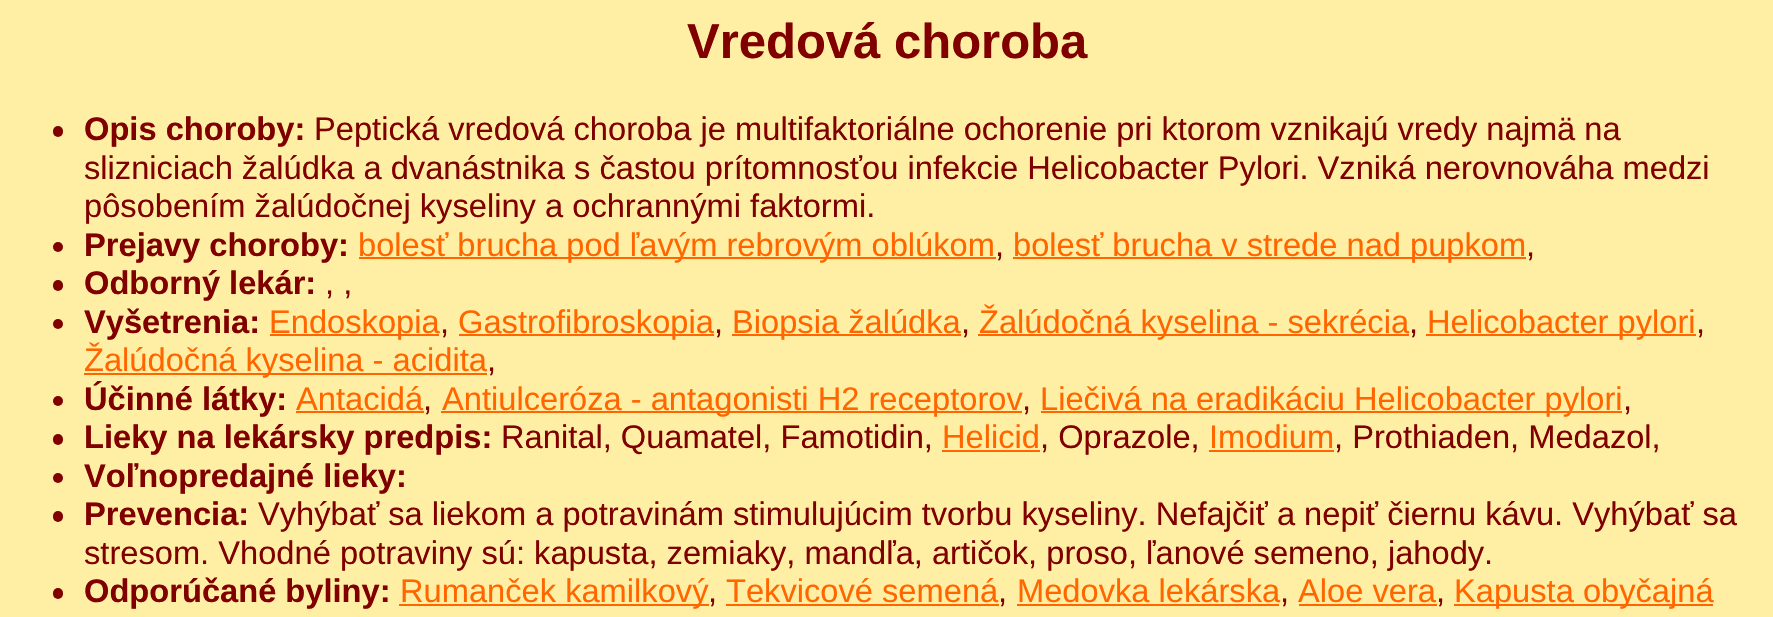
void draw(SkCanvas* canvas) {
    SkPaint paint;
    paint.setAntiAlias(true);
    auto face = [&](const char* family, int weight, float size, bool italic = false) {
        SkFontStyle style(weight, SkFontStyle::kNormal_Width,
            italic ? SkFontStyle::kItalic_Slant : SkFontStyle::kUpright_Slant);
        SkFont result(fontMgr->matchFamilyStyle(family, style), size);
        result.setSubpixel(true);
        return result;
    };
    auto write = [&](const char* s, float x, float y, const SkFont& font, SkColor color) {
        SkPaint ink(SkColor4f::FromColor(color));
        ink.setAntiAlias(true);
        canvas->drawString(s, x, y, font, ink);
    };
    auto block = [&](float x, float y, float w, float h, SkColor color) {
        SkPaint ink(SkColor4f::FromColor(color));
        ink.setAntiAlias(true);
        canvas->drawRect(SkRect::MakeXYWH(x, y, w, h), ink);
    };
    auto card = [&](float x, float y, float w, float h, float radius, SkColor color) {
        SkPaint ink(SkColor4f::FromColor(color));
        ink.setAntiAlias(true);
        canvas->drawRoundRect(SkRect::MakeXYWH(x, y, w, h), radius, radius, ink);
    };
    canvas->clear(SkColorSetRGB(255, 239, 164));
    auto kFont1 = face("Liberation Sans", 700, 49);
    write("Vredová choroba", 687, 58, kFont1, SkColorSetRGB(128, 0, 0));
    card(53, 126, 10, 11, 5, SkColorSetRGB(128, 0, 0));
    auto kFont2 = face("Liberation Sans", 700, 32.65f);
    write("Opis choroby:", 84, 140, kFont2, SkColorSetRGB(128, 0, 0));
    auto kFont3 = face("Liberation Sans", 400, 32.65f);
    write("Peptická vredová choroba je multifaktoriálne ochorenie pri ktorom vznikajú vredy najmä na", 314, 140, kFont3, SkColorSetRGB(128, 0, 0));
    write("slizniciach žalúdka a dvanástnika s častou prítomnosťou infekcie Helicobacter Pylori. Vzniká nerovnováha medzi", 84, 179, kFont3, SkColorSetRGB(128, 0, 0));
    write("pôsobením žalúdočnej kyseliny a ochrannými faktormi.", 84, 217, kFont3, SkColorSetRGB(128, 0, 0));
    paint.setColor(SkColorSetRGB(128, 0, 0));
    canvas->drawCircle(58, 247, 5, paint);
    write("Prejavy choroby:", 84, 256, kFont2, SkColorSetRGB(128, 0, 0));
    block(359, 257, 637, 2, SkColorSetRGB(255, 102, 0));
    write("bolesť brucha pod ľavým rebrovým oblúkom", 358, 256, kFont3, SkColorSetRGB(255, 102, 0));
    block(1013, 257, 513, 2, SkColorSetRGB(255, 102, 0));
    write("bolesť brucha v strede nad pupkom", 1013, 256, kFont3, SkColorSetRGB(255, 102, 0));
    write(",", 995, 256, kFont3, SkColorSetRGB(128, 0, 0));
    write(",", 1526, 256, kFont3, SkColorSetRGB(128, 0, 0));
    card(53, 280, 10, 11, 5, SkColorSetRGB(128, 0, 0));
    write("Odborný lekár:", 84, 294, kFont2, SkColorSetRGB(128, 0, 0));
    write(", ,", 325, 294, kFont3, SkColorSetRGB(128, 0, 0));
    canvas->drawCircle(58, 324, 5, paint);
    write("Vyšetrenia:", 84, 333, kFont2, SkColorSetRGB(128, 0, 0));
    block(270, 334, 169, 2, SkColorSetRGB(255, 102, 0));
    write("Endoskopia", 269, 333, kFont3, SkColorSetRGB(255, 102, 0));
    block(459, 334, 255, 2, SkColorSetRGB(255, 102, 0));
    write("Gastrofibroskopia", 458, 333, kFont3, SkColorSetRGB(255, 102, 0));
    block(732, 334, 229, 2, SkColorSetRGB(255, 102, 0));
    write("Biopsia žalúdka", 732, 333, kFont3, SkColorSetRGB(255, 102, 0));
    block(978, 334, 431, 2, SkColorSetRGB(255, 102, 0));
    write("Žalúdočná kyselina - sekrécia", 979, 333, kFont3, SkColorSetRGB(255, 102, 0));
    block(1426, 334, 270, 2, SkColorSetRGB(255, 102, 0));
    write("Helicobacter pylori", 1427, 333, kFont3, SkColorSetRGB(255, 102, 0));
    write(",", 440, 333, kFont3, SkColorSetRGB(128, 0, 0));
    write(",", 714, 333, kFont3, SkColorSetRGB(128, 0, 0));
    write(",", 961, 333, kFont3, SkColorSetRGB(128, 0, 0));
    write(",", 1409, 333, kFont3, SkColorSetRGB(128, 0, 0));
    write(",", 1696, 333, kFont3, SkColorSetRGB(128, 0, 0));
    block(84, 373, 403, 2, SkColorSetRGB(255, 102, 0));
    write("Žalúdočná kyselina - acidita", 84, 371, kFont3, SkColorSetRGB(255, 102, 0));
    write(",", 487, 371, kFont3, SkColorSetRGB(128, 0, 0));
    canvas->drawCircle(58, 401, 5, paint);
    write("Účinné látky:", 84, 410, kFont2, SkColorSetRGB(128, 0, 0));
    write("Antacidá", 296, 410, kFont3, SkColorSetRGB(255, 102, 0));
    block(296, 411, 128, 2, SkColorSetRGB(255, 102, 0));
    block(441, 411, 581, 2, SkColorSetRGB(255, 102, 0));
    write("Antiulceróza - antagonisti H2 receptorov", 442, 410, kFont3, SkColorSetRGB(255, 102, 0));
    block(1041, 411, 581, 2, SkColorSetRGB(255, 102, 0));
    write("Liečivá na eradikáciu Helicobacter pylori", 1040, 410, kFont3, SkColorSetRGB(255, 102, 0));
    write(",", 423, 410, kFont3, SkColorSetRGB(128, 0, 0));
    write(",", 1022, 410, kFont3, SkColorSetRGB(128, 0, 0));
    write(",", 1623, 410, kFont3, SkColorSetRGB(128, 0, 0));
    card(53, 434, 10, 11, 5, SkColorSetRGB(128, 0, 0));
    write("Lieky na lekársky predpis:", 84, 448, kFont2, SkColorSetRGB(128, 0, 0));
    write("Ranital, Quamatel, Famotidin,", 501, 448, kFont3, SkColorSetRGB(128, 0, 0));
    write("Helicid", 942, 448, kFont3, SkColorSetRGB(255, 102, 0));
    block(942, 450, 98, 2, SkColorSetRGB(255, 102, 0));
    write(", Oprazole,", 1040, 448, kFont3, SkColorSetRGB(128, 0, 0));
    write("Imodium", 1209, 448, kFont3, SkColorSetRGB(255, 102, 0));
    block(1209, 450, 125, 2, SkColorSetRGB(255, 102, 0));
    write(", Prothiaden, Medazol,", 1334, 448, kFont3, SkColorSetRGB(128, 0, 0));
    canvas->drawCircle(58, 478, 5, paint);
    write("Voľnopredajné lieky:", 84, 487, kFont2, SkColorSetRGB(128, 0, 0));
    card(53, 511, 10, 11, 5, SkColorSetRGB(128, 0, 0));
    write("Prevencia:", 84, 525, kFont2, SkColorSetRGB(128, 0, 0));
    write("Vyhýbať sa liekom a potravinám stimulujúcim tvorbu kyseliny. Nefajčiť a nepiť čiernu kávu. Vyhýbať sa", 258, 525, kFont3, SkColorSetRGB(128, 0, 0));
    write("stresom. Vhodné potraviny sú: kapusta, zemiaky, mandľa, artičok, proso, ľanové semeno, jahody.", 84, 564, kFont3, SkColorSetRGB(128, 0, 0));
    card(53, 588, 10, 11, 5, SkColorSetRGB(128, 0, 0));
    write("Odporúčané byliny:", 84, 602, kFont2, SkColorSetRGB(128, 0, 0));
    block(399, 604, 310, 2, SkColorSetRGB(255, 102, 0));
    write("Rumanček kamilkový", 400, 602, kFont3, SkColorSetRGB(255, 102, 0));
    write("Tekvicové semená", 726, 602, kFont3, SkColorSetRGB(255, 102, 0));
    block(726, 604, 273, 2, SkColorSetRGB(255, 102, 0));
    write("Medovka lekárska", 1017, 602, kFont3, SkColorSetRGB(255, 102, 0));
    block(1017, 604, 262, 2, SkColorSetRGB(255, 102, 0));
    write("Aloe vera", 1298, 602, kFont3, SkColorSetRGB(255, 102, 0));
    block(1299, 604, 138, 2, SkColorSetRGB(255, 102, 0));
    block(1454, 604, 259, 2, SkColorSetRGB(255, 102, 0));
    write("Kapusta obyčajná", 1454, 602, kFont3, SkColorSetRGB(255, 102, 0));
    write(",", 708, 602, kFont3, SkColorSetRGB(128, 0, 0));
    write(",", 998, 602, kFont3, SkColorSetRGB(128, 0, 0));
    write(",", 1280, 602, kFont3, SkColorSetRGB(128, 0, 0));
    write(",", 1436, 602, kFont3, SkColorSetRGB(128, 0, 0));
}
